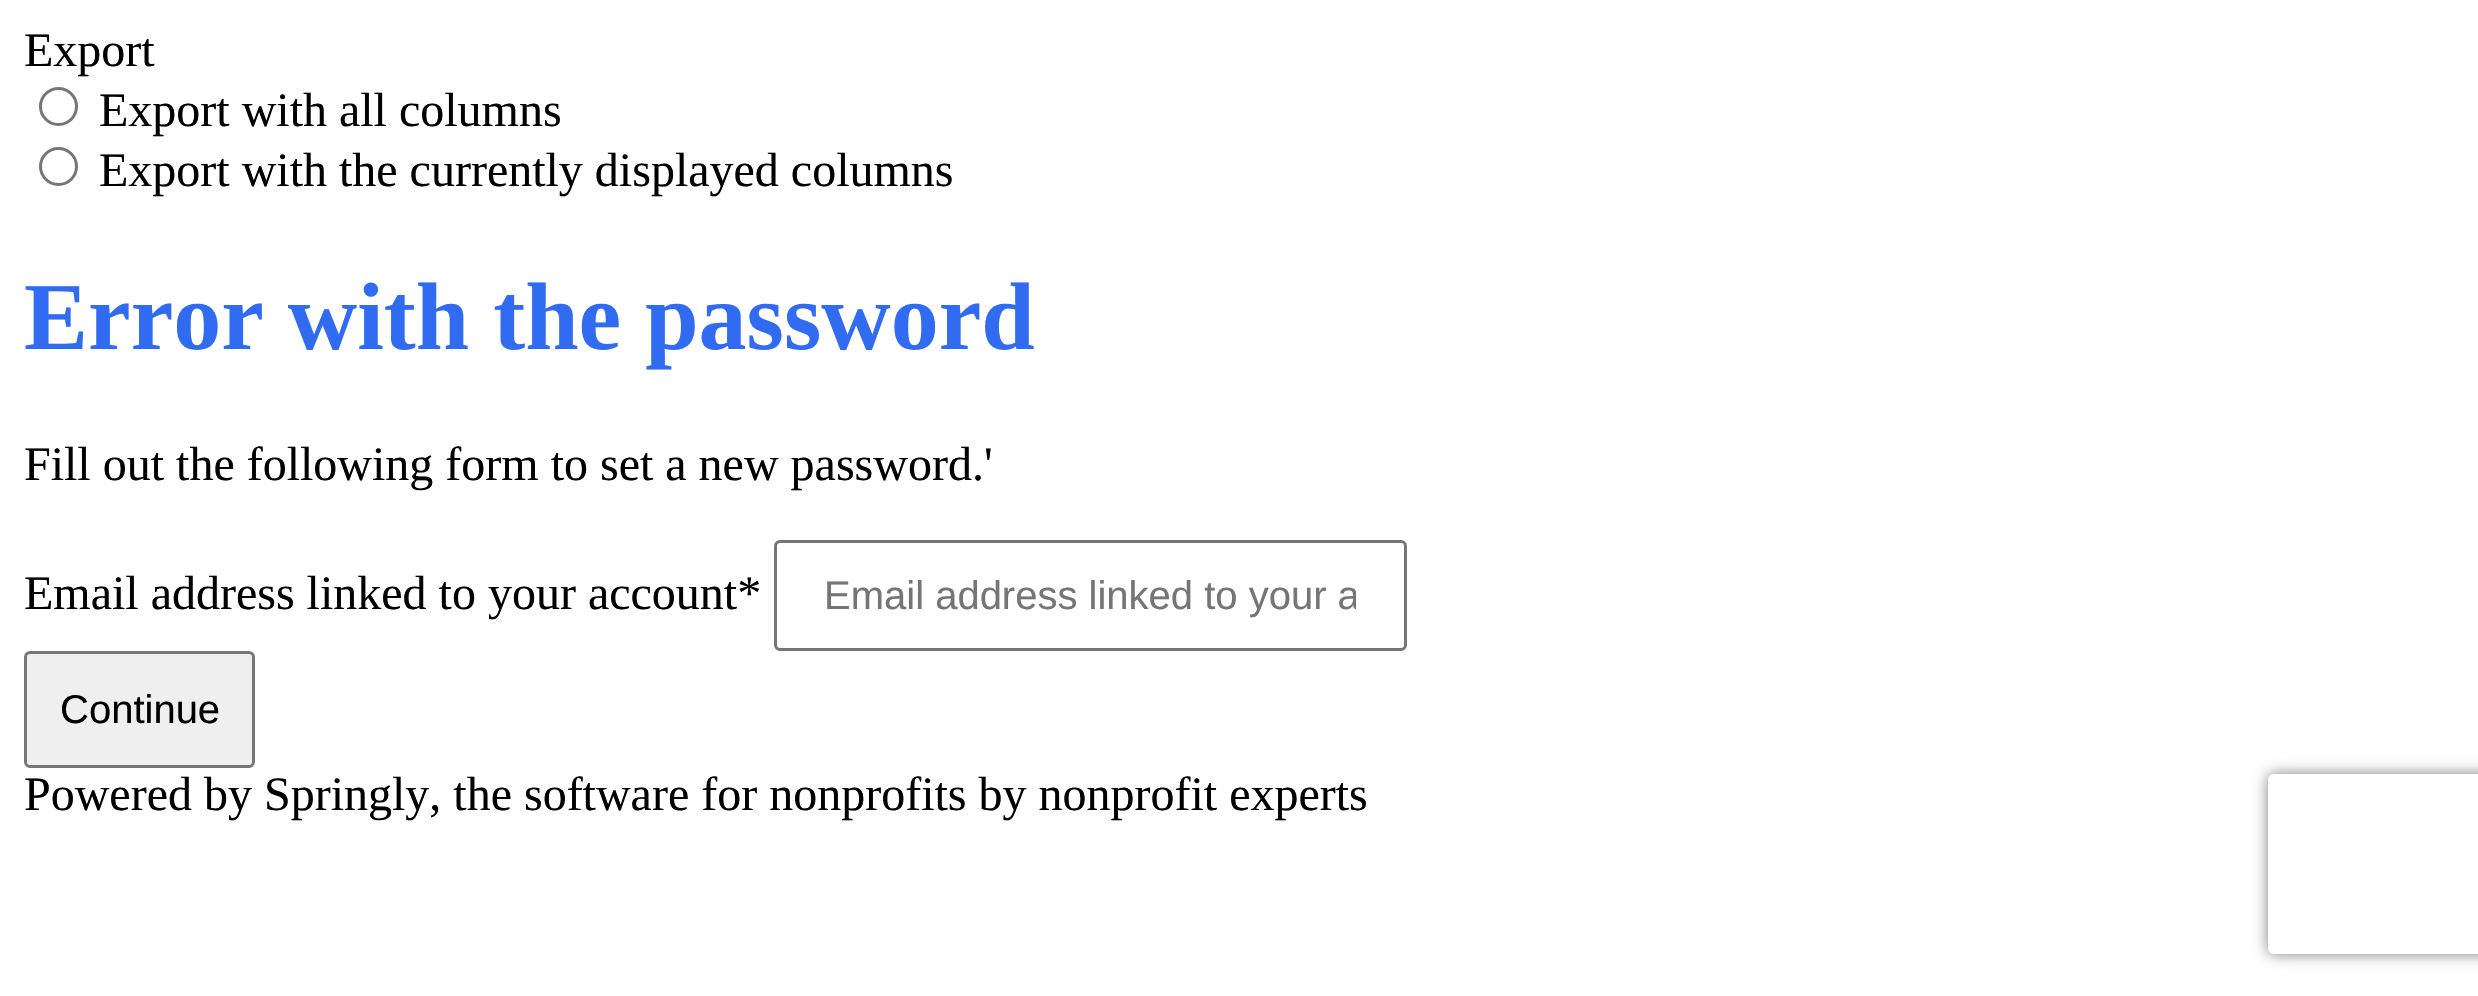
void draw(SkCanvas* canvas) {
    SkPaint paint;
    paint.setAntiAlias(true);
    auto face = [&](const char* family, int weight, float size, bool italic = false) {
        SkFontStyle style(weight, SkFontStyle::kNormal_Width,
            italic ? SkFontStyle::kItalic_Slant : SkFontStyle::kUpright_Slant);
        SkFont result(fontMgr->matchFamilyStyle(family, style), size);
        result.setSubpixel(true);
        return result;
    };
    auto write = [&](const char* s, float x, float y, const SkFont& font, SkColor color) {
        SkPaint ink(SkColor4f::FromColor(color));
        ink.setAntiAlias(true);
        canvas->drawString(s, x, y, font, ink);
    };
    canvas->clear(SK_ColorWHITE);
    auto kFont1 = face("Liberation Serif", 400, 48);
    write("Export", 24, 66, kFont1, SK_ColorBLACK);
    paint.setStyle(SkPaint::kStroke_Style);
    paint.setStrokeWidth(3);
    paint.setColor(SkColorSetRGB(118, 118, 118));
    canvas->drawCircle(58.5f, 106.5f, 18, paint);
    write("Export with all columns", 99, 126, kFont1, SK_ColorBLACK);
    canvas->drawCircle(58.5f, 166.5f, 18, paint);
    write("Export with the currently displayed columns", 99, 186, kFont1, SK_ColorBLACK);
    auto kFont2 = face("Liberation Serif", 700, 96);
    write("Error with the password", 24, 349, kFont2, SkColorSetRGB(49, 107, 242));
    write("Fill out the following form to set a new password.'", 24, 480, kFont1, SK_ColorBLACK);
    write("Email address linked to your account*", 24, 609, kFont1, SK_ColorBLACK);
    canvas->drawRoundRect(SkRect::MakeXYWH(775.5f, 541.5f, 630, 108), 4.5f, 4.5f, paint);
    canvas->save();
    canvas->clipRect(SkRect::MakeXYWH(825, 573, 531, 45));
    auto kFont3 = face("Liberation Sans", 400, 40);
    write("Email address linked to your a", 824, 609, kFont3, SkColorSetRGB(117, 117, 117));
    canvas->restore();
    paint.setStyle(SkPaint::kFill_Style);
    paint.setColor(SkColorSetRGB(239, 239, 239));
    canvas->drawRoundRect(SkRect::MakeXYWH(25.5f, 652.5f, 228, 114), 4.5f, 4.5f, paint);
    paint.setStyle(SkPaint::kStroke_Style);
    paint.setColor(SkColorSetRGB(118, 118, 118));
    canvas->drawRoundRect(SkRect::MakeXYWH(25.5f, 652.5f, 228, 114), 4.5f, 4.5f, paint);
    write("Continue", 60, 723, kFont3, SK_ColorBLACK);
    canvas->save();
    canvas->clipPath(SkPathBuilder(SkPathFillType::kEvenOdd).moveTo(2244, 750).lineTo(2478, 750).lineTo(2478, 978).lineTo(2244, 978).close().moveTo(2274, 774).lineTo(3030, 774).cubicTo(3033.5f, 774, 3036, 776.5f, 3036, 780).lineTo(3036, 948).cubicTo(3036, 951.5f, 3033.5f, 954, 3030, 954).lineTo(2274, 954).cubicTo(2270.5f, 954, 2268, 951.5f, 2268, 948).lineTo(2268, 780).cubicTo(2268, 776.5f, 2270.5f, 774, 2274, 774).close().detach(), true);
    paint.setStyle(SkPaint::kFill_Style);
    paint.setColor(SkColorSetRGB(128, 128, 128));
    paint.setMaskFilter(SkMaskFilter::MakeBlur(kNormal_SkBlurStyle, 7.5f));
    canvas->drawRoundRect(SkRect::MakeXYWH(2268, 774, 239, 180), 6, 6, paint);
    paint.setMaskFilter(nullptr);
    canvas->restore();
    write("Powered by Springly, the software for nonprofits by nonprofit experts", 24, 810, kFont1, SK_ColorBLACK);
}
